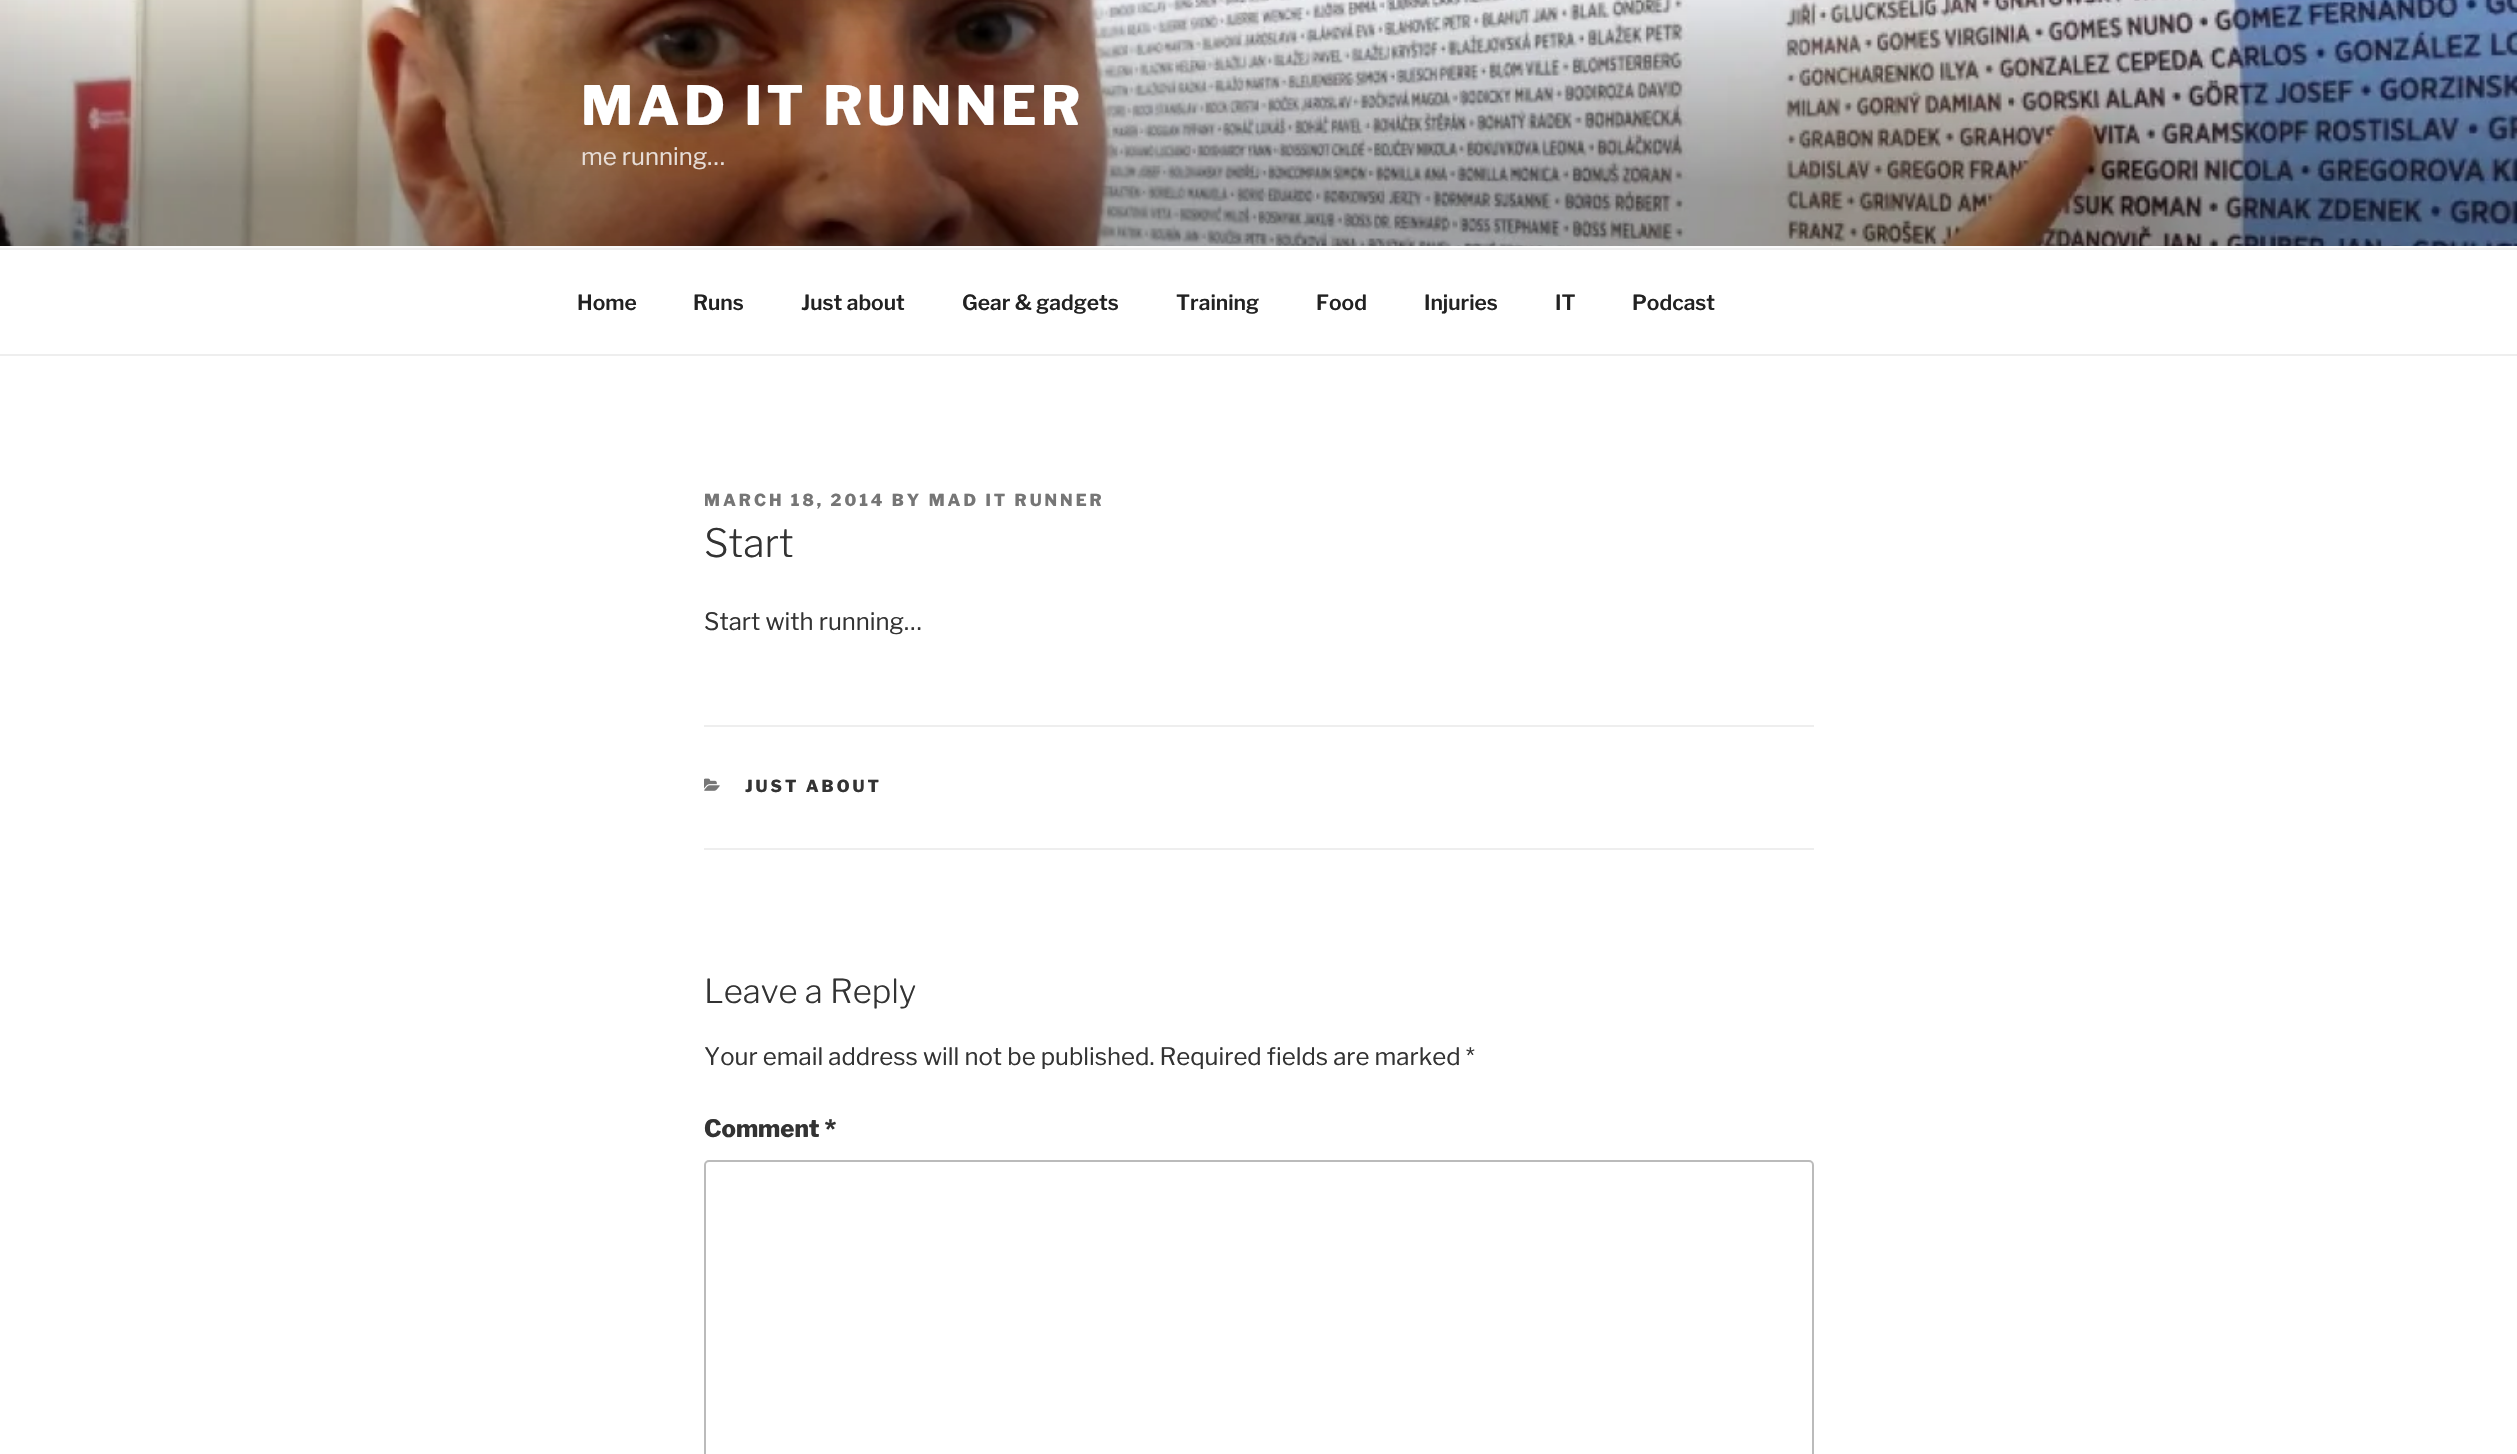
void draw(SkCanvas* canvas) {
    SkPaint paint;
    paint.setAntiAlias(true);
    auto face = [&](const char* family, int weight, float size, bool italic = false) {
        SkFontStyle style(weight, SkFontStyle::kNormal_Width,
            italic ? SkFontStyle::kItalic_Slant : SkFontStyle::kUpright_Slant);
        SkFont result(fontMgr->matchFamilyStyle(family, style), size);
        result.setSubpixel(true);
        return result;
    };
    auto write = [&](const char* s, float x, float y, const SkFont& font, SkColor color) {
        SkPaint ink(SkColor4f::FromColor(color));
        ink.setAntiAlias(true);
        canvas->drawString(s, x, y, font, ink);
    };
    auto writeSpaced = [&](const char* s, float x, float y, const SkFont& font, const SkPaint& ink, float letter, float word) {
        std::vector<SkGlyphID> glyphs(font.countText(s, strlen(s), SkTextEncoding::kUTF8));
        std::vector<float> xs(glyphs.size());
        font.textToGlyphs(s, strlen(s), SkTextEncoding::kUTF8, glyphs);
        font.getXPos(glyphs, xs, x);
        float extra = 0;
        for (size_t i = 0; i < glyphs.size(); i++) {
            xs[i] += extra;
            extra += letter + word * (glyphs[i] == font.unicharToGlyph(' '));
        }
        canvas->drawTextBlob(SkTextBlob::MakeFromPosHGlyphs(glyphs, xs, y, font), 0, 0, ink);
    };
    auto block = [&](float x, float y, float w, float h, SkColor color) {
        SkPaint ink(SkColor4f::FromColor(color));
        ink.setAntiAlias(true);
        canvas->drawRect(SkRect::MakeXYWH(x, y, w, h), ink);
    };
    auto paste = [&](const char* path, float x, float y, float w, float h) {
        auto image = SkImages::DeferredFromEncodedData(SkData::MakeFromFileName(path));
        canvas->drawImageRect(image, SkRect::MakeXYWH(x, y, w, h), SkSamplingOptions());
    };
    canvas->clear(SK_ColorWHITE);
    block(0, 246, 2517, 2, SkColorSetRGB(250, 250, 250));
    paste("pic1.png", 0, 0, 2517, 246);
    auto kFont1 = face("Libre Franklin", 100, 54);
    paint.setColor(SK_ColorWHITE);
    writeSpaced("MAD IT RUNNER", 581, 125, kFont1, paint, 4.25f, 0);
    auto kFont2 = face("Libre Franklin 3", 100, 24);
    write("me running…", 581, 165, kFont2, SkColorSetRGB(231, 221, 215));
    block(0, 248, 2517, 2, SkColorSetRGB(238, 238, 238));
    block(0, 354, 2517, 2, SkColorSetRGB(238, 238, 238));
    auto kFont3 = face("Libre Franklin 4", 100, 21);
    write("Home", 577, 310, kFont3, SkColorSetRGB(34, 34, 34));
    write("Runs", 693, 310, kFont3, SkColorSetRGB(34, 34, 34));
    write("Just about", 801, 310, kFont3, SkColorSetRGB(34, 34, 34));
    write("Gear & gadgets", 962, 310, kFont3, SkColorSetRGB(34, 34, 34));
    write("Training", 1176, 310, kFont3, SkColorSetRGB(34, 34, 34));
    write("Food", 1316, 310, kFont3, SkColorSetRGB(34, 34, 34));
    write("Injuries", 1424, 310, kFont3, SkColorSetRGB(34, 34, 34));
    write("IT", 1555, 310, kFont3, SkColorSetRGB(34, 34, 34));
    write("Podcast", 1632, 310, kFont3, SkColorSetRGB(34, 34, 34));
    auto kFont4 = face("Libre Franklin", 100, 16.5f);
    paint.setColor(SkColorSetRGB(118, 118, 118));
    writeSpaced("MARCH 18, 2014 BY MAD IT RUNNER", 704, 506, kFont4, paint, 3, 0);
    auto kFont5 = face("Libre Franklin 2", 100, 39);
    write("Start", 704, 557, kFont5, SkColorSetRGB(51, 51, 51));
    write("Start with running…", 704, 630, kFont2, SkColorSetRGB(51, 51, 51));
    block(704, 725, 1110, 2, SkColorSetRGB(238, 238, 238));
    block(704, 848, 1110, 2, SkColorSetRGB(238, 238, 238));
    paste("pic2.png", 704, 778, 16, 13);
    paint.setColor(SkColorSetRGB(51, 51, 51));
    writeSpaced("JUST ABOUT", 745, 792, kFont4, paint, 3, 0);
    auto kFont6 = face("Libre Franklin 2", 100, 33);
    write("Leave a Reply", 704, 1003, kFont6, SkColorSetRGB(51, 51, 51));
    write("Your email address will not be published. Required fields are marked *", 704, 1065, kFont2, SkColorSetRGB(51, 51, 51));
    auto kFont7 = face("Libre Franklin", 100, 24);
    write("Comment *", 704, 1137, kFont7, SkColorSetRGB(51, 51, 51));
    paint.setStyle(SkPaint::kStroke_Style);
    paint.setStrokeWidth(2);
    paint.setColor(SkColorSetRGB(187, 187, 187));
    canvas->drawRoundRect(SkRect::MakeXYWH(705, 1161, 1108, 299), 4, 4, paint);
}
